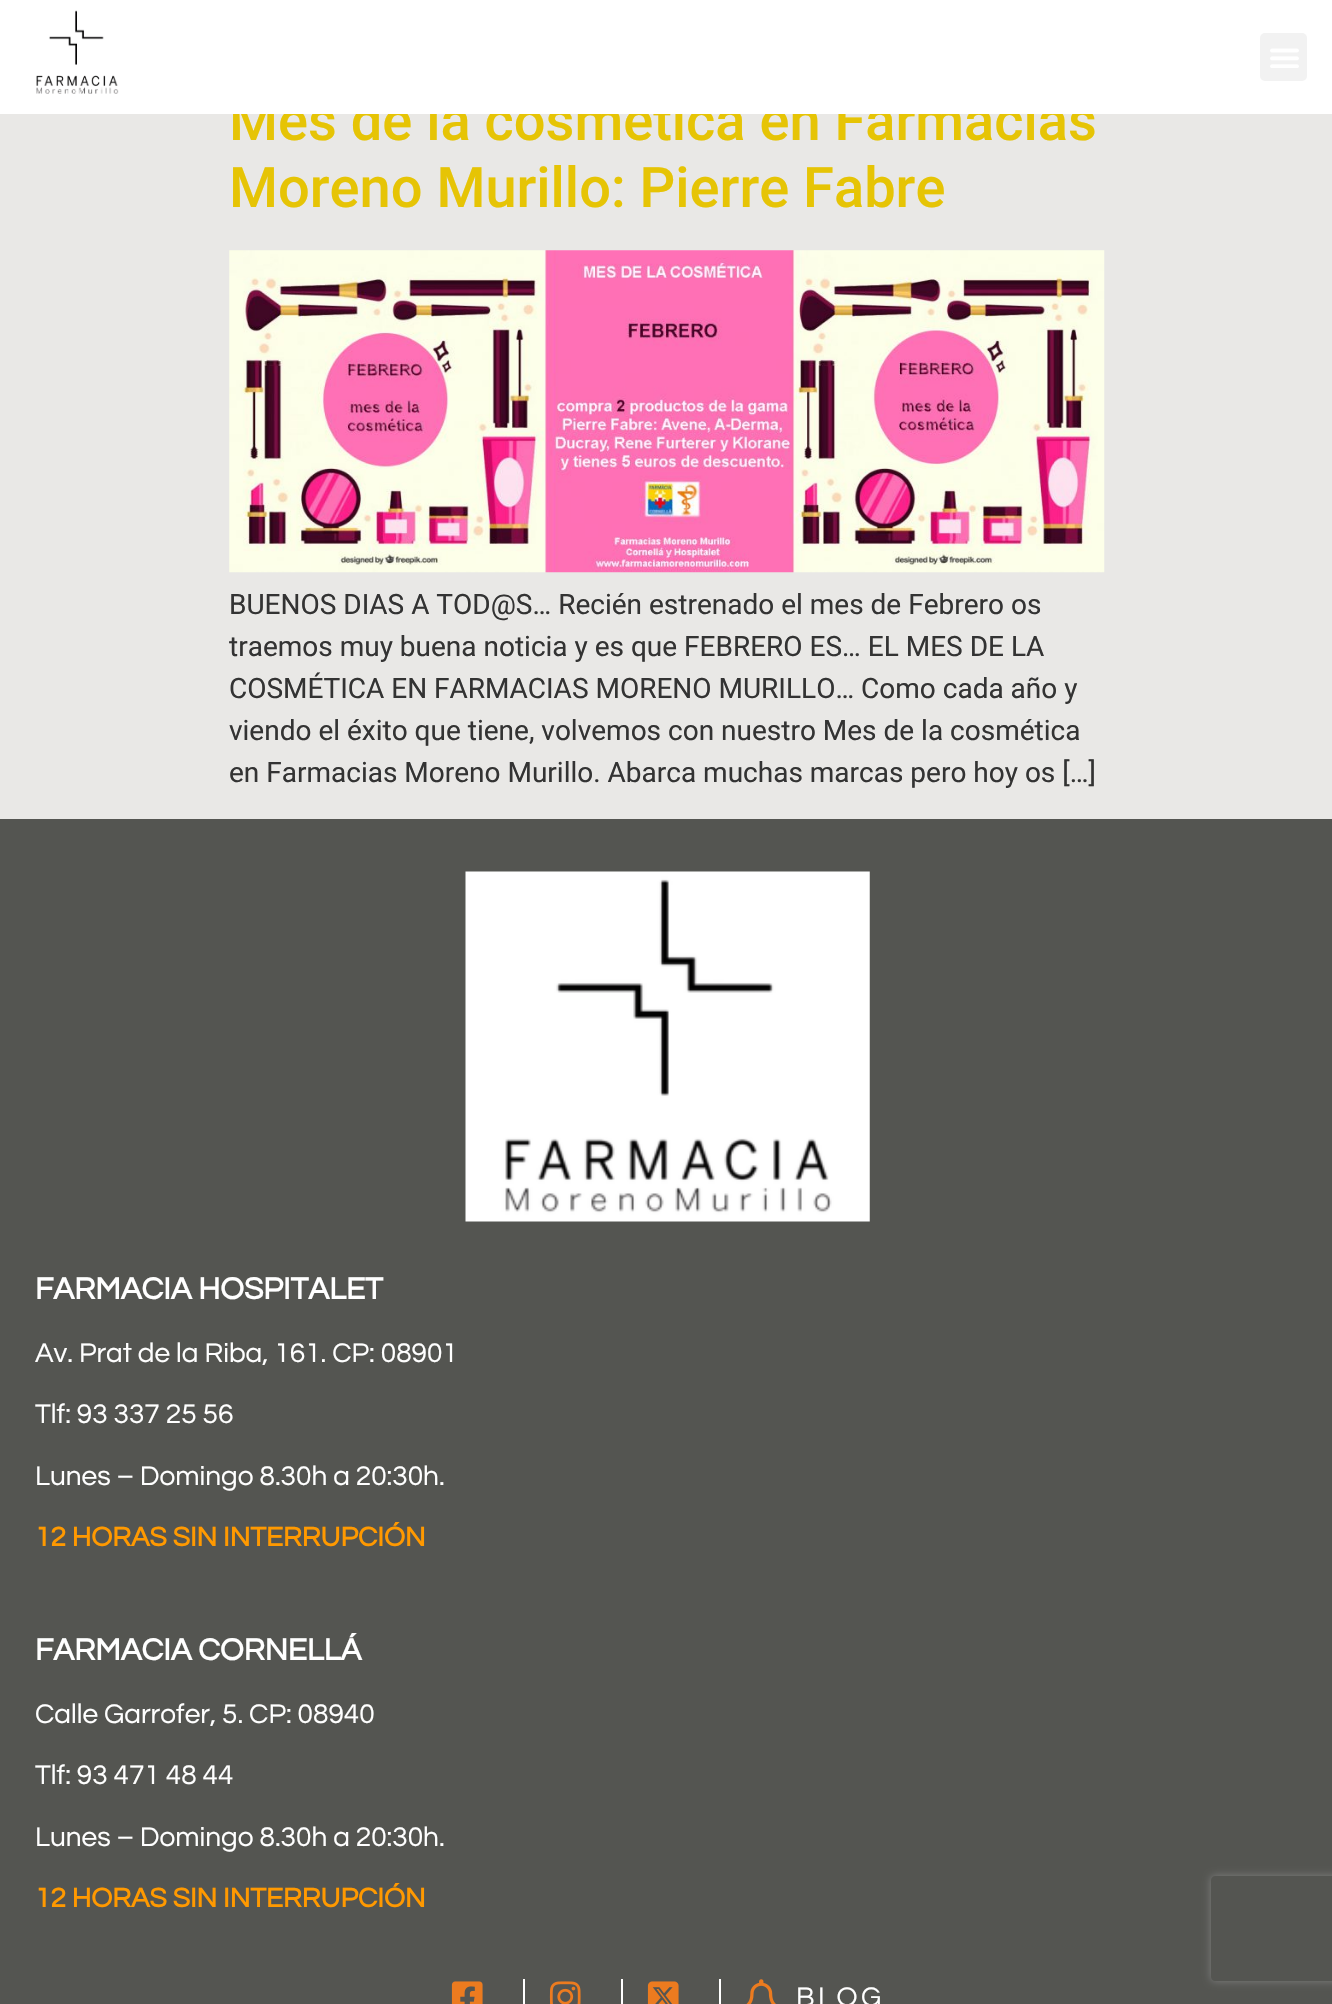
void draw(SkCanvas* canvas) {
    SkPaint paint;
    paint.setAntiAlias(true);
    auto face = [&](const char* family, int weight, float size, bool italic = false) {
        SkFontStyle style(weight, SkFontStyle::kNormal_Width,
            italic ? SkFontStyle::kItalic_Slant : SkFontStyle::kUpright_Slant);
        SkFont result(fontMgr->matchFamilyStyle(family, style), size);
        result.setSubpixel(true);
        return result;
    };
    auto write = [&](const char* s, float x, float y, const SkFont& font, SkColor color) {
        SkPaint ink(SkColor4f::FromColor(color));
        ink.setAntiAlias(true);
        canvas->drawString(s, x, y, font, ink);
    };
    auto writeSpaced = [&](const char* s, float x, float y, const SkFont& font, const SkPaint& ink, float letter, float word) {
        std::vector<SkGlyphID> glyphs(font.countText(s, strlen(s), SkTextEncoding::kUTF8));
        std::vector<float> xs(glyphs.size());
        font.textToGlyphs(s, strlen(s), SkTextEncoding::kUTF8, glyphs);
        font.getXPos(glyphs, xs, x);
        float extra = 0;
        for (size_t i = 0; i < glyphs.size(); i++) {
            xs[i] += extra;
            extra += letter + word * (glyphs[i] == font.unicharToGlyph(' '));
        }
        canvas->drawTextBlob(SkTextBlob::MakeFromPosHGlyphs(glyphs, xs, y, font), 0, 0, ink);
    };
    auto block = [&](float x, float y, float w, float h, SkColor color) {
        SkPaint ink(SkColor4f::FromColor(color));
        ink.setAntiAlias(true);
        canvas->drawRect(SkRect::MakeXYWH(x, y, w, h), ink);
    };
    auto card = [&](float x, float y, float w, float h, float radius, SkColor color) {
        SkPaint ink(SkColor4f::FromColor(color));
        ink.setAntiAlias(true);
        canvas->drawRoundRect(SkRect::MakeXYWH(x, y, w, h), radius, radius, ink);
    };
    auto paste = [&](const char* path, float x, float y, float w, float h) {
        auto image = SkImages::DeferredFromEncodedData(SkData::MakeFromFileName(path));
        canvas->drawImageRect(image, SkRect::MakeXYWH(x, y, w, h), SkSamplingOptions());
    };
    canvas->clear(SkColorSetRGB(233, 232, 230));
    auto kFont1 = face("Roboto", 500, 56);
    write("Mes de la cosmética en Farmacias", 229, 140, kFont1, SkColorSetRGB(230, 196, 5));
    block(0, 0, 1332, 114, SK_ColorWHITE);
    paste("pic1.png", 36, 10, 83, 84);
    card(1260, 33, 47, 48, 5, SkColorSetRGB(242, 242, 242));
    paste("pic2.png", 1270, 48, 29, 20);
    write("Moreno Murillo: Pierre Fabre", 229, 207, kFont1, SkColorSetRGB(230, 196, 5));
    paste("pic3.png", 229, 250, 876, 323);
    auto kFont2 = face("Roboto", 400, 28);
    write("BUENOS DIAS A TOD@S… Recién estrenado el mes de Febrero os", 229, 614, kFont2, SkColorSetRGB(51, 51, 51));
    write("traemos muy buena noticia y es que FEBRERO ES… EL MES DE LA", 229, 656, kFont2, SkColorSetRGB(51, 51, 51));
    write("COSMÉTICA EN FARMACIAS MORENO MURILLO… Como cada año y", 229, 698, kFont2, SkColorSetRGB(51, 51, 51));
    write("viendo el éxito que tiene, volvemos con nuestro Mes de la cosmética", 229, 740, kFont2, SkColorSetRGB(51, 51, 51));
    write("en Farmacias Moreno Murillo. Abarca muchas marcas pero hoy os […]", 229, 782, kFont2, SkColorSetRGB(51, 51, 51));
    block(0, 819, 1332, 1185, SkColorSetRGB(84, 85, 81));
    paste("pic4.png", 465, 871, 405, 351);
    auto kFont3 = face("Questrial", 700, 31.5f);
    write("FARMACIA HOSPITALET", 35, 1299, kFont3, SK_ColorWHITE);
    auto kFont4 = face("Questrial", 400, 28);
    write("Av. Prat de la Riba, 161. CP: 08901", 35, 1362, kFont4, SK_ColorWHITE);
    write("Tlf: 93 337 25 56", 35, 1423, kFont4, SK_ColorWHITE);
    write("Lunes – Domingo 8.30h a 20:30h.", 35, 1485, kFont4, SK_ColorWHITE);
    auto kFont5 = face("Questrial", 700, 28);
    write("12 HORAS SIN INTERRUPCIÓN", 35, 1546, kFont5, SkColorSetRGB(255, 153, 0));
    write("FARMACIA CORNELLÁ", 35, 1660, kFont3, SK_ColorWHITE);
    write("Calle Garrofer, 5. CP: 08940", 35, 1723, kFont4, SK_ColorWHITE);
    write("Tlf: 93 471 48 44", 35, 1784, kFont4, SK_ColorWHITE);
    write("Lunes – Domingo 8.30h a 20:30h.", 35, 1846, kFont4, SK_ColorWHITE);
    write("12 HORAS SIN INTERRUPCIÓN", 35, 1907, kFont5, SkColorSetRGB(255, 153, 0));
    paste("pic5.png", 451, 1981, 32, 23);
    block(523, 1979, 2, 25, SK_ColorWHITE);
    paste("pic6.png", 549, 1981, 32, 23);
    block(621, 1979, 2, 25, SK_ColorWHITE);
    paste("pic7.png", 647, 1981, 32, 23);
    block(719, 1979, 2, 25, SK_ColorWHITE);
    paste("pic8.png", 746, 1979, 30, 25);
    paint.setColor(SK_ColorWHITE);
    writeSpaced("BLOG", 796, 2006, kFont4, paint, 3.5f, 0);
    canvas->save();
    canvas->clipPath(SkPathBuilder(SkPathFillType::kEvenOdd).moveTo(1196, 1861).lineTo(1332, 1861).lineTo(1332, 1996).lineTo(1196, 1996).close().moveTo(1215, 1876).lineTo(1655, 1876).cubicTo(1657, 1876, 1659, 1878, 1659, 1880).lineTo(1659, 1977).cubicTo(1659, 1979, 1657, 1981, 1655, 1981).lineTo(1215, 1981).cubicTo(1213, 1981, 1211, 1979, 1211, 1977).lineTo(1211, 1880).cubicTo(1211, 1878, 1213, 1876, 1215, 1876).close().detach(), true);
    paint.setColor(SkColorSetRGB(128, 128, 128));
    paint.setMaskFilter(SkMaskFilter::MakeBlur(kNormal_SkBlurStyle, 4.5f));
    canvas->drawRoundRect(SkRect::MakeXYWH(1211, 1876, 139, 105), 4, 4, paint);
    paint.setMaskFilter(nullptr);
    canvas->restore();
}
